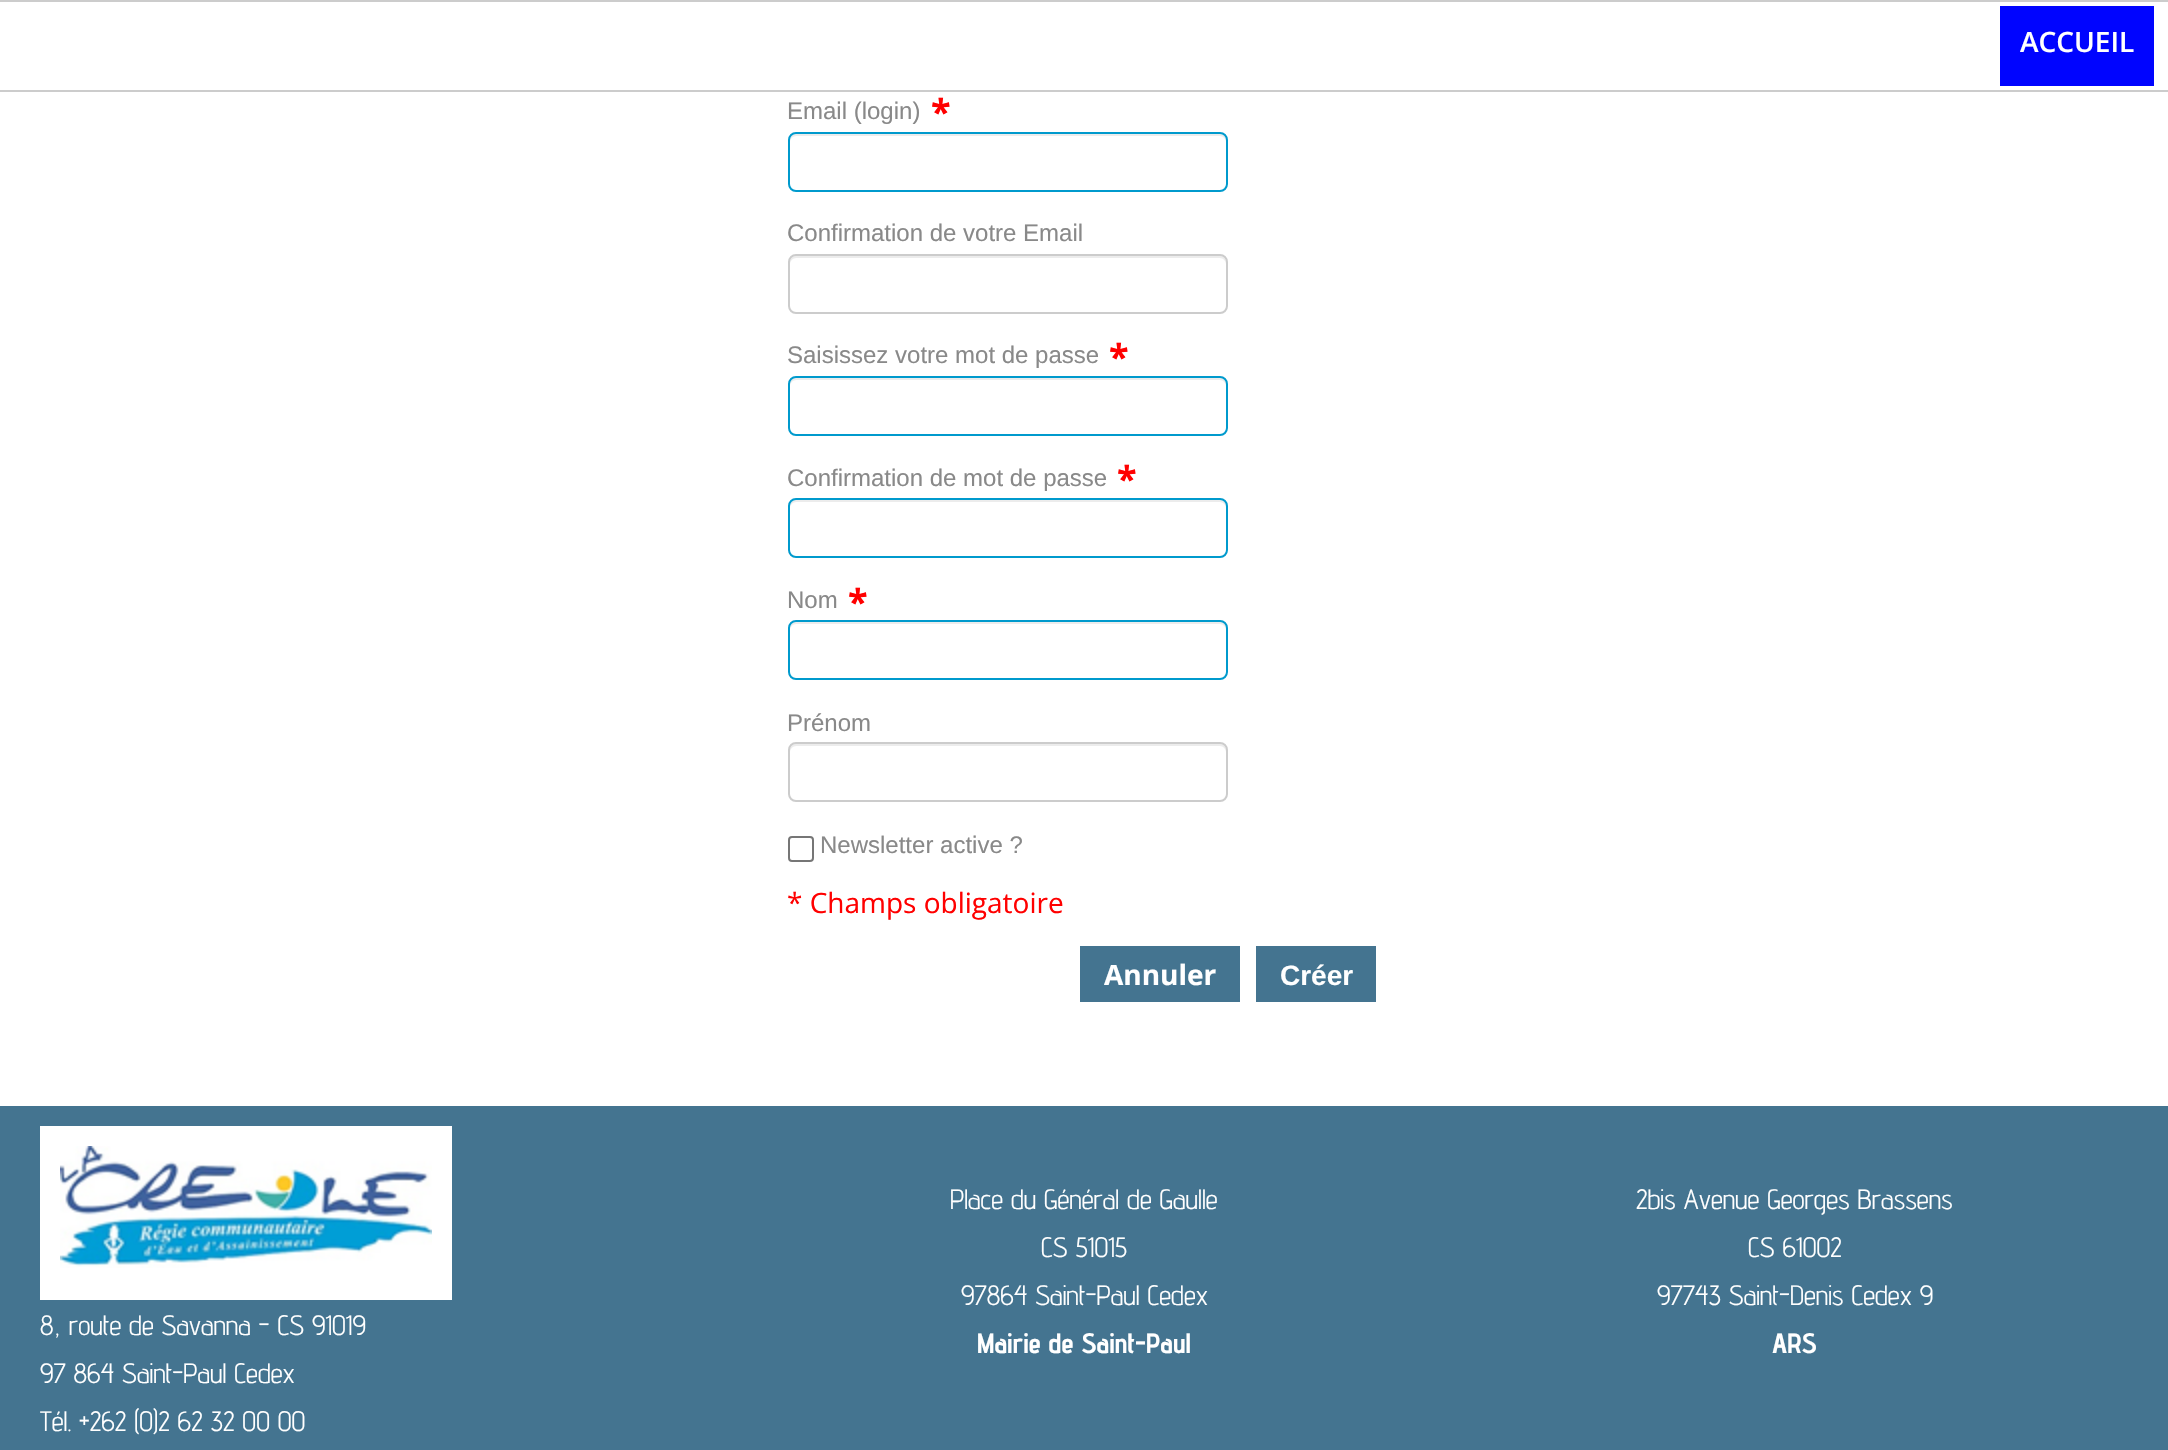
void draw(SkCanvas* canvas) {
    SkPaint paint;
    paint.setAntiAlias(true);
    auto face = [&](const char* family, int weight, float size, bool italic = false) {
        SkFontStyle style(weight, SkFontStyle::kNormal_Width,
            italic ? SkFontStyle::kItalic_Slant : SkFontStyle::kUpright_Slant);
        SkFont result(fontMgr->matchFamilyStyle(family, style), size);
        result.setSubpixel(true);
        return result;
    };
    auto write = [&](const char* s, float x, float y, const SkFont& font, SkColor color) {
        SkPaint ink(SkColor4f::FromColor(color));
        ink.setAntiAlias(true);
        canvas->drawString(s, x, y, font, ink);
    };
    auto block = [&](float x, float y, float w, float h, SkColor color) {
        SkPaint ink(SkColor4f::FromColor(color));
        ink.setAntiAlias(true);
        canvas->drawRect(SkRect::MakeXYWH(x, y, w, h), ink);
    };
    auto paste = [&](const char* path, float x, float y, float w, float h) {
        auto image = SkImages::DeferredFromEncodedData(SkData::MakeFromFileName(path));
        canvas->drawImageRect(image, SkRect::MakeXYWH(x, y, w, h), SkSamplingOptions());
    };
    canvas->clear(SK_ColorWHITE);
    block(0, 0, 2168, 2, SkColorSetRGB(204, 204, 204));
    block(0, 90, 2168, 2, SkColorSetRGB(204, 204, 204));
    block(2000, 6, 154, 80, SkColorSetRGB(0, 4, 255));
    auto kFont1 = face("Open Sans", 600, 28);
    write("ACCUEIL", 2020, 52, kFont1, SK_ColorWHITE);
    auto kFont2 = face("Liberation Sans", 400, 24);
    write("Email (login)", 787, 119, kFont2, SkColorSetRGB(137, 137, 137));
    auto kFont3 = face("Open Sans", 700, 36);
    write("*", 931, 125, kFont3, SkColorSetRGB(255, 0, 0));
    paint.setColor(SkColorSetRGB(236, 236, 236));
    canvas->drawPath(SkPathBuilder().moveTo(796, 136).lineTo(1220, 136).cubicTo(1223, 136, 1226, 139, 1226, 142).lineTo(1226, 140).cubicTo(1226, 137, 1223, 134, 1220, 134).lineTo(796, 134).cubicTo(793, 134, 790, 137, 790, 140).lineTo(790, 142).cubicTo(790, 139, 793, 136, 796, 136).close().detach(), paint);
    paint.setStyle(SkPaint::kStroke_Style);
    paint.setStrokeWidth(2);
    paint.setColor(SkColorSetRGB(0, 154, 205));
    canvas->drawRoundRect(SkRect::MakeXYWH(789, 133, 438, 58), 7, 7, paint);
    write("Confirmation de votre Email", 787, 241, kFont2, SkColorSetRGB(137, 137, 137));
    paint.setStyle(SkPaint::kFill_Style);
    paint.setColor(SkColorSetRGB(236, 236, 236));
    canvas->drawPath(SkPathBuilder().moveTo(796, 258).lineTo(1220, 258).cubicTo(1223, 258, 1226, 261, 1226, 264).lineTo(1226, 262).cubicTo(1226, 259, 1223, 256, 1220, 256).lineTo(796, 256).cubicTo(793, 256, 790, 259, 790, 262).lineTo(790, 264).cubicTo(790, 261, 793, 258, 796, 258).close().detach(), paint);
    paint.setStyle(SkPaint::kStroke_Style);
    paint.setColor(SkColorSetRGB(204, 204, 204));
    canvas->drawRoundRect(SkRect::MakeXYWH(789, 255, 438, 58), 7, 7, paint);
    write("Saisissez votre mot de passe", 787, 363, kFont2, SkColorSetRGB(137, 137, 137));
    write("*", 1109, 370, kFont3, SkColorSetRGB(255, 0, 0));
    paint.setStyle(SkPaint::kFill_Style);
    paint.setColor(SkColorSetRGB(236, 236, 236));
    canvas->drawPath(SkPathBuilder().moveTo(796, 380).lineTo(1220, 380).cubicTo(1223, 380, 1226, 383, 1226, 386).lineTo(1226, 384).cubicTo(1226, 381, 1223, 378, 1220, 378).lineTo(796, 378).cubicTo(793, 378, 790, 381, 790, 384).lineTo(790, 386).cubicTo(790, 383, 793, 380, 796, 380).close().detach(), paint);
    paint.setStyle(SkPaint::kStroke_Style);
    paint.setColor(SkColorSetRGB(0, 154, 205));
    canvas->drawRoundRect(SkRect::MakeXYWH(789, 377, 438, 58), 7, 7, paint);
    write("Confirmation de mot de passe", 787, 486, kFont2, SkColorSetRGB(137, 137, 137));
    write("*", 1117, 492, kFont3, SkColorSetRGB(255, 0, 0));
    paint.setStyle(SkPaint::kFill_Style);
    paint.setColor(SkColorSetRGB(236, 236, 236));
    canvas->drawPath(SkPathBuilder().moveTo(796, 502).lineTo(1220, 502).cubicTo(1223, 502, 1226, 505, 1226, 508).lineTo(1226, 506).cubicTo(1226, 503, 1223, 500, 1220, 500).lineTo(796, 500).cubicTo(793, 500, 790, 503, 790, 506).lineTo(790, 508).cubicTo(790, 505, 793, 502, 796, 502).close().detach(), paint);
    paint.setStyle(SkPaint::kStroke_Style);
    paint.setColor(SkColorSetRGB(0, 154, 205));
    canvas->drawRoundRect(SkRect::MakeXYWH(789, 499, 438, 58), 7, 7, paint);
    write("Nom", 787, 608, kFont2, SkColorSetRGB(137, 137, 137));
    write("*", 848, 615, kFont3, SkColorSetRGB(255, 0, 0));
    paint.setStyle(SkPaint::kFill_Style);
    paint.setColor(SkColorSetRGB(236, 236, 236));
    canvas->drawPath(SkPathBuilder().moveTo(796, 624).lineTo(1220, 624).cubicTo(1223, 624, 1226, 627, 1226, 630).lineTo(1226, 628).cubicTo(1226, 625, 1223, 622, 1220, 622).lineTo(796, 622).cubicTo(793, 622, 790, 625, 790, 628).lineTo(790, 630).cubicTo(790, 627, 793, 624, 796, 624).close().detach(), paint);
    paint.setStyle(SkPaint::kStroke_Style);
    paint.setColor(SkColorSetRGB(0, 154, 205));
    canvas->drawRoundRect(SkRect::MakeXYWH(789, 621, 438, 58), 7, 7, paint);
    write("Prénom", 787, 731, kFont2, SkColorSetRGB(137, 137, 137));
    paint.setStyle(SkPaint::kFill_Style);
    paint.setColor(SkColorSetRGB(236, 236, 236));
    canvas->drawPath(SkPathBuilder().moveTo(796, 746).lineTo(1220, 746).cubicTo(1223, 746, 1226, 749, 1226, 752).lineTo(1226, 750).cubicTo(1226, 747, 1223, 744, 1220, 744).lineTo(796, 744).cubicTo(793, 744, 790, 747, 790, 750).lineTo(790, 752).cubicTo(790, 749, 793, 746, 796, 746).close().detach(), paint);
    paint.setStyle(SkPaint::kStroke_Style);
    paint.setColor(SkColorSetRGB(204, 204, 204));
    canvas->drawRoundRect(SkRect::MakeXYWH(789, 743, 438, 58), 7, 7, paint);
    paint.setColor(SkColorSetRGB(118, 118, 118));
    canvas->drawRoundRect(SkRect::MakeXYWH(789, 837, 24, 24), 3, 3, paint);
    write("Newsletter active ?", 820, 853, kFont2, SkColorSetRGB(137, 137, 137));
    auto kFont4 = face("Open Sans", 400, 28);
    write("* Champs obligatoire", 787, 913, kFont4, SkColorSetRGB(255, 0, 0));
    block(1080, 946, 160, 56, SkColorSetRGB(68, 116, 144));
    auto kFont5 = face("Open Sans", 700, 28);
    write("Annuler", 1104, 985, kFont5, SK_ColorWHITE);
    block(1256, 946, 120, 56, SkColorSetRGB(68, 116, 144));
    auto kFont6 = face("Liberation Sans", 700, 28);
    write("Créer", 1280, 985, kFont6, SK_ColorWHITE);
    block(0, 1106, 2168, 344, SkColorSetRGB(68, 116, 144));
    auto kFont7 = face("Advent Pro", 400, 28);
    write("Place du Général de Gaulle", 950, 1209, kFont7, SK_ColorWHITE);
    write("CS 51015", 1041, 1257, kFont7, SK_ColorWHITE);
    write("97864 Saint-Paul Cedex", 961, 1305, kFont7, SK_ColorWHITE);
    auto kFont8 = face("Advent Pro", 700, 28);
    write("Mairie de Saint-Paul", 977, 1353, kFont8, SK_ColorWHITE);
    write("2bis Avenue Georges Brassens", 1636, 1209, kFont7, SK_ColorWHITE);
    write("CS 61002", 1748, 1257, kFont7, SK_ColorWHITE);
    write("97743 Saint-Denis Cedex 9", 1657, 1305, kFont7, SK_ColorWHITE);
    write("ARS", 1772, 1353, kFont8, SK_ColorWHITE);
    block(40, 1126, 412, 174, SK_ColorWHITE);
    paste("pic1.png", 60, 1146, 372, 122);
    write("8, route de Savanna - CS 91019", 40, 1335, kFont7, SK_ColorWHITE);
    write("97 864 Saint-Paul Cedex", 40, 1383, kFont7, SK_ColorWHITE);
    write("Tél. +262 (0)2 62 32 00 00", 40, 1431, kFont7, SK_ColorWHITE);
}
